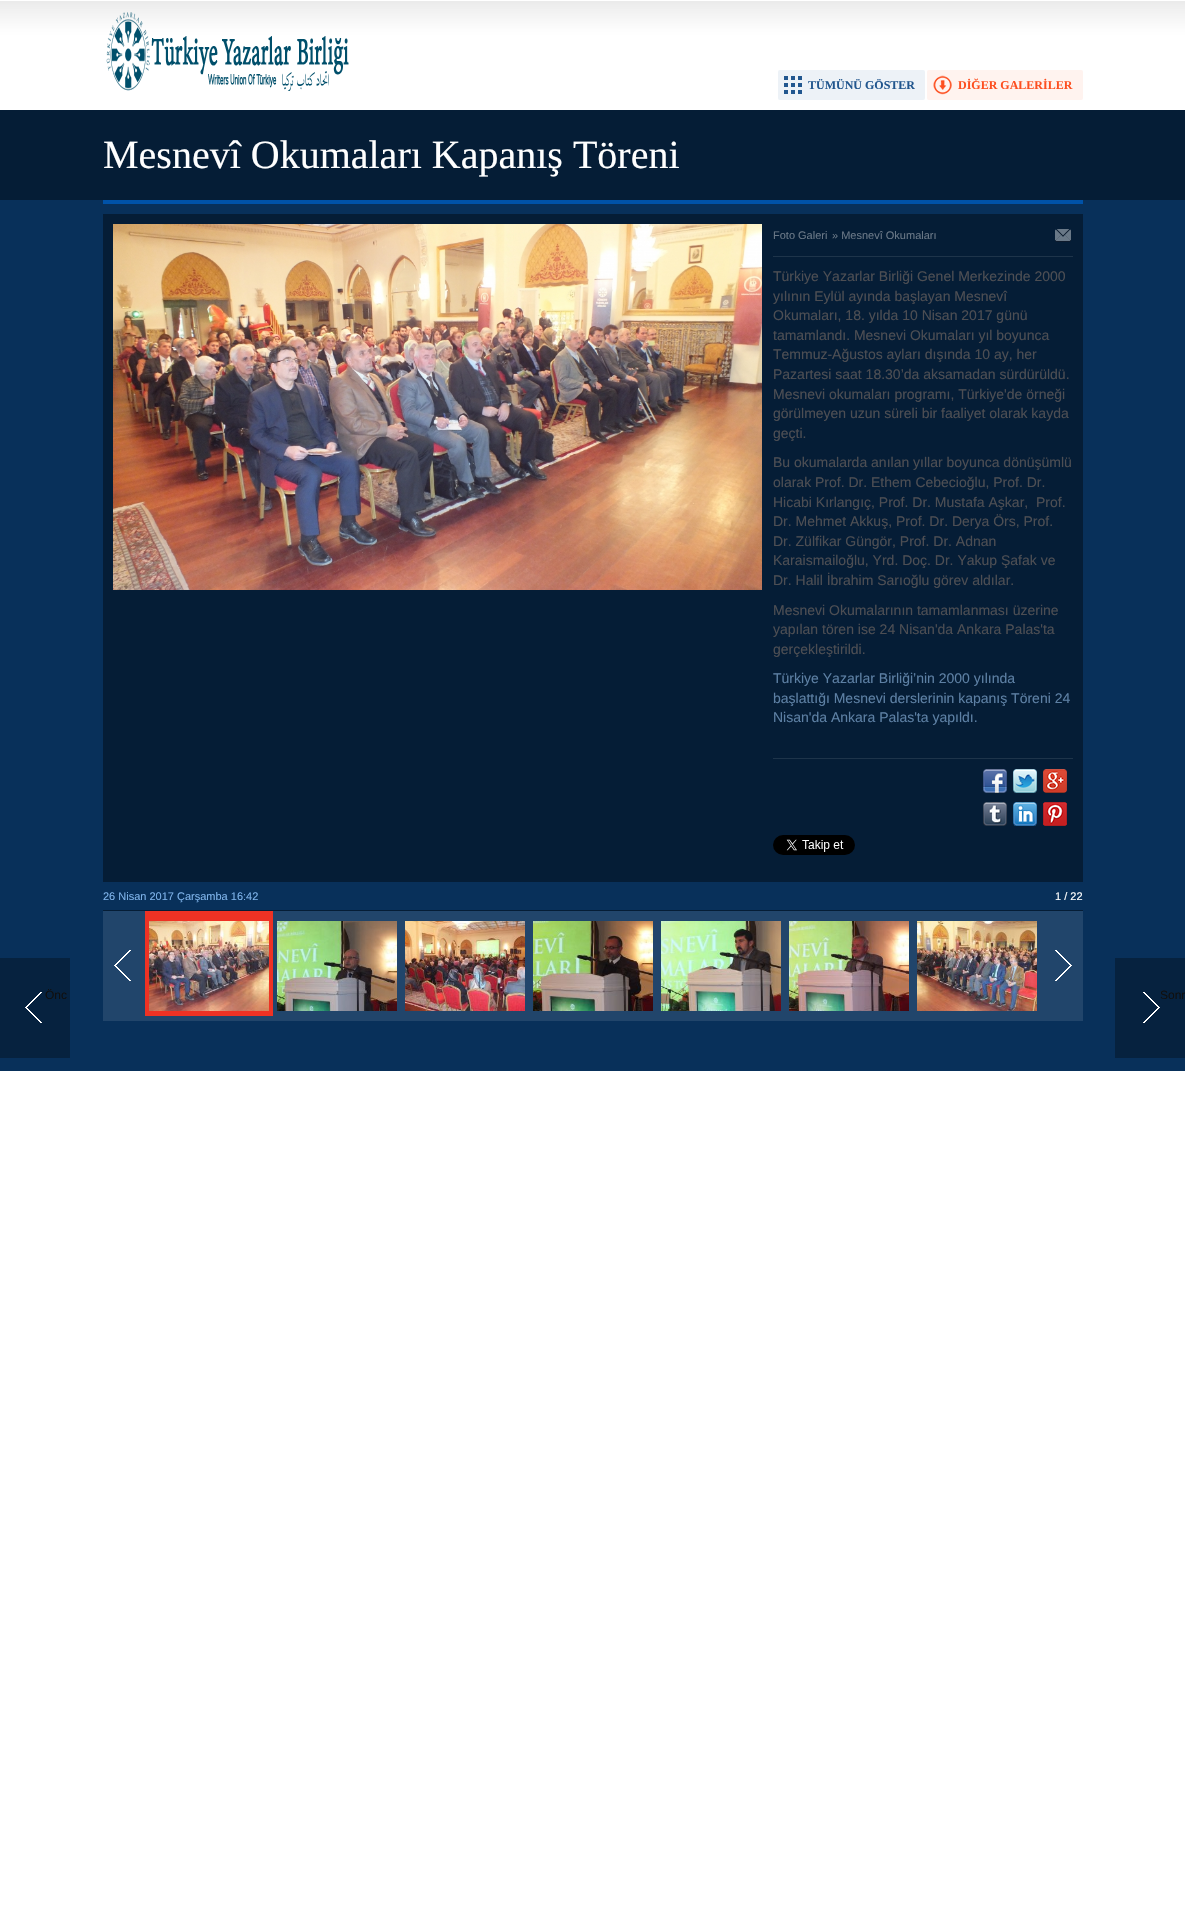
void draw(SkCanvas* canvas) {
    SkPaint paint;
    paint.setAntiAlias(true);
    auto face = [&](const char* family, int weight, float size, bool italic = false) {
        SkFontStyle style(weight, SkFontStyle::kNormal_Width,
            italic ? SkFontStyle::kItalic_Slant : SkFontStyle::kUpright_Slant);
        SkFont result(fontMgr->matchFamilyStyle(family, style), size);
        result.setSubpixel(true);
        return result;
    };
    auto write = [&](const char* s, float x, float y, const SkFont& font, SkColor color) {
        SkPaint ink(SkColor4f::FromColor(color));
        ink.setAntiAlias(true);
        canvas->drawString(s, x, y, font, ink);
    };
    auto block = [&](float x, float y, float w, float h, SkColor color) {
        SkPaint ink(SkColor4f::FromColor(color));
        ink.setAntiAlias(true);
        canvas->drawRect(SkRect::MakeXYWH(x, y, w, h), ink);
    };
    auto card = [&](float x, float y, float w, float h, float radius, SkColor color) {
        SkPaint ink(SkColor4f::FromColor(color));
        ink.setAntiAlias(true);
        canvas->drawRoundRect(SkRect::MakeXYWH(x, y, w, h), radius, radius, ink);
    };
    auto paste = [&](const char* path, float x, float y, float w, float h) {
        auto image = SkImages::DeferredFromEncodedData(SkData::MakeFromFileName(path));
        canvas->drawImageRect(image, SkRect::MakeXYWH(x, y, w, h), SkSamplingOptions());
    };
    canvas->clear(SK_ColorWHITE);
    block(0, 200, 1185, 871, SkColorSetRGB(8, 48, 90));
    paste("pic1.png", 0, 0, 1185, 200);
    paste("pic2.png", 106, 12, 243, 79);
    card(778, 70, 147, 30, 2, SkColorSetRGB(237, 242, 247));
    paste("pic3.png", 784, 76, 18, 18);
    auto kFont1 = face("Liberation Serif", 700, 12);
    write("TÜMÜNÜ GÖSTER", 808, 89, kFont1, SkColorSetRGB(33, 86, 142));
    card(927, 70, 156, 30, 2, SkColorSetRGB(255, 243, 239));
    paste("pic4.png", 933, 75, 19, 20);
    write("DİĞER GALERİLER", 958, 89, kFont1, SkColorSetRGB(253, 79, 32));
    block(103, 200, 980, 4, SkColorSetRGB(0, 82, 168));
    auto kFont2 = face("Liberation Serif", 400, 40);
    write("Mesnevî Okumaları Kapanış Töreni", 103, 168, kFont2, SK_ColorWHITE);
    block(103, 214, 980, 668, SkColorSetRGB(5, 29, 54));
    paste("pic5.png", 113, 224, 649, 366);
    auto kFont3 = face("Liberation Sans", 400, 11);
    write("Foto Galeri", 773, 239, kFont3, SkColorSetRGB(105, 119, 134));
    write("» Mesnevî Okumaları", 832, 239, kFont3, SkColorSetRGB(105, 119, 134));
    paste("pic6.png", 1055, 229, 16, 13);
    block(773, 256, 300, 1, SkColorSetRGB(30, 52, 74));
    auto kFont4 = face("Liberation Sans", 400, 14);
    write("Türkiye Yazarlar Birliği Genel Merkezinde 2000", 773, 281, kFont4, SkColorSetRGB(77, 78, 83));
    write("yılının Eylül ayında başlayan Mesnevî", 773, 301, kFont4, SkColorSetRGB(77, 78, 83));
    write("Okumaları, 18. yılda 10 Nisan 2017 günü", 773, 320, kFont4, SkColorSetRGB(77, 78, 83));
    write("tamamlandı. Mesnevi Okumaları yıl boyunca", 773, 340, kFont4, SkColorSetRGB(77, 78, 83));
    write("Temmuz-Ağustos ayları dışında 10 ay, her", 773, 359, kFont4, SkColorSetRGB(77, 78, 83));
    write("Pazartesi saat 18.30’da aksamadan sürdürüldü.", 773, 379, kFont4, SkColorSetRGB(77, 78, 83));
    write("Mesnevi okumaları programı, Türkiye'de örneği", 773, 399, kFont4, SkColorSetRGB(77, 78, 83));
    write("görülmeyen uzun süreli bir faaliyet olarak kayda", 773, 418, kFont4, SkColorSetRGB(77, 78, 83));
    write("geçti.", 773, 438, kFont4, SkColorSetRGB(77, 78, 83));
    write("Bu okumalarda anılan yıllar boyunca dönüşümlü", 773, 467, kFont4, SkColorSetRGB(77, 78, 83));
    write("olarak Prof. Dr. Ethem Cebecioğlu, Prof. Dr.", 773, 487, kFont4, SkColorSetRGB(77, 78, 83));
    write("Hicabi Kırlangıç, Prof. Dr. Mustafa Aşkar,  Prof.", 773, 507, kFont4, SkColorSetRGB(77, 78, 83));
    write("Dr. Mehmet Akkuş, Prof. Dr. Derya Örs, Prof.", 773, 526, kFont4, SkColorSetRGB(77, 78, 83));
    write("Dr. Zülfikar Güngör, Prof. Dr. Adnan", 773, 546, kFont4, SkColorSetRGB(77, 78, 83));
    write("Karaismailoğlu, Yrd. Doç. Dr. Yakup Şafak ve", 773, 565, kFont4, SkColorSetRGB(77, 78, 83));
    write("Dr. Halil İbrahim Sarıoğlu görev aldılar.", 773, 585, kFont4, SkColorSetRGB(77, 78, 83));
    write("Mesnevi Okumalarının tamamlanması üzerine", 773, 615, kFont4, SkColorSetRGB(77, 78, 83));
    write("yapılan tören ise 24 Nisan'da Ankara Palas'ta", 773, 634, kFont4, SkColorSetRGB(77, 78, 83));
    write("gerçekleştirildi.", 773, 654, kFont4, SkColorSetRGB(77, 78, 83));
    block(773, 758, 300, 1, SkColorSetRGB(30, 52, 74));
    write("Türkiye Yazarlar Birliği’nin 2000 yılında", 773, 683, kFont4, SkColorSetRGB(93, 128, 164));
    write("başlattığı Mesnevi derslerinin kapanış Töreni 24", 773, 703, kFont4, SkColorSetRGB(93, 128, 164));
    write("Nisan'da Ankara Palas'ta yapıldı.", 773, 722, kFont4, SkColorSetRGB(93, 128, 164));
    paste("pic7.png", 983, 769, 24, 24);
    paste("pic8.png", 1013, 769, 24, 24);
    paste("pic9.png", 1043, 769, 24, 24);
    paste("pic10.png", 983, 802, 24, 24);
    paste("pic11.png", 1013, 802, 24, 24);
    paste("pic12.png", 1043, 802, 24, 24);
    paste("pic13.png", 773, 835, 82, 20);
    write("26 Nisan 2017 Çarşamba 16:42", 103, 900, kFont3, SkColorSetRGB(125, 178, 233));
    write("1 / 22", 1055, 900, kFont3, SK_ColorWHITE);
    block(103, 911, 980, 110, SkColorSetRGB(33, 69, 107));
    block(103, 910, 980, 1, SkColorSetRGB(5, 29, 54));
    paste("pic14.png", 114, 950, 17, 31);
    block(145, 911, 128, 105, SkColorSetRGB(238, 50, 36));
    paste("pic15.png", 149, 921, 120, 90);
    paste("pic16.png", 277, 921, 120, 90);
    paste("pic17.png", 405, 921, 120, 90);
    paste("pic18.png", 533, 921, 120, 90);
    paste("pic19.png", 661, 921, 120, 90);
    paste("pic20.png", 789, 921, 120, 90);
    paste("pic21.png", 917, 921, 120, 90);
    paste("pic22.png", 1055, 950, 17, 31);
    block(0, 958, 70, 100, SkColorSetRGB(6, 34, 63));
    paste("pic23.png", 25, 992, 17, 31);
    auto kFont5 = face("Liberation Sans", 400, 12);
    write("Önc", 45, 999, kFont5, SkColorSetRGB(15, 15, 15));
    block(1115, 958, 70, 100, SkColorSetRGB(6, 34, 63));
    paste("pic24.png", 1143, 992, 17, 31);
    write("Sonr", 1160, 999, kFont5, SkColorSetRGB(15, 15, 15));
}
